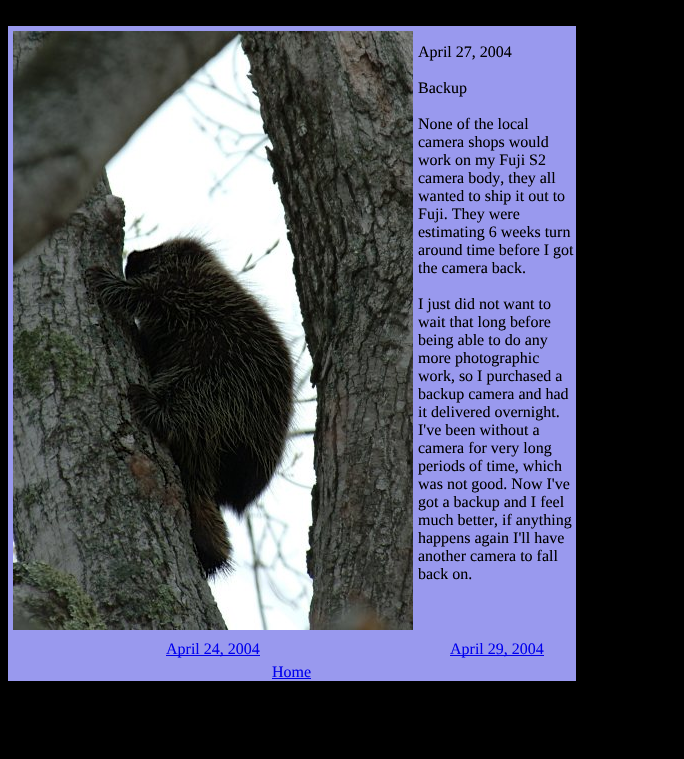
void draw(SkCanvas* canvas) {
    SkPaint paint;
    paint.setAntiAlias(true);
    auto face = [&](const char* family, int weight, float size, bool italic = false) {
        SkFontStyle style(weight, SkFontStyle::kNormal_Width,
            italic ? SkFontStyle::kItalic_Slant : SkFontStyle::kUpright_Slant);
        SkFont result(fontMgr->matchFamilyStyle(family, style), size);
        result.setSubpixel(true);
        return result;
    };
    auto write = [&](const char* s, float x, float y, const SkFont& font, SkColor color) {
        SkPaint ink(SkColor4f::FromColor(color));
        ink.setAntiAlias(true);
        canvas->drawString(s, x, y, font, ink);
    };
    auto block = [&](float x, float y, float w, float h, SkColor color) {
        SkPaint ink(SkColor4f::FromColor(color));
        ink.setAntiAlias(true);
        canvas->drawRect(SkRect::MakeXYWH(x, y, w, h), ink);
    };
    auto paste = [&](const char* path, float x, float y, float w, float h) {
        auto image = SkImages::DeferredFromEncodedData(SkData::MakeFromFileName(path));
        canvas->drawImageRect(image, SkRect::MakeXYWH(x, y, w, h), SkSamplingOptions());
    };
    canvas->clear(SK_ColorBLACK);
    block(8, 26, 568, 655, SkColorSetRGB(153, 153, 238));
    paste("pic1.png", 13, 31, 400, 599);
    auto kFont1 = face("Liberation Serif", 400, 16);
    write("April 27, 2004", 418, 57, kFont1, SK_ColorBLACK);
    write("Backup", 418, 93, kFont1, SK_ColorBLACK);
    write("None of the local", 418, 129, kFont1, SK_ColorBLACK);
    write("camera shops would", 418, 147, kFont1, SK_ColorBLACK);
    write("work on my Fuji S2", 418, 165, kFont1, SK_ColorBLACK);
    write("camera body, they all", 418, 183, kFont1, SK_ColorBLACK);
    write("wanted to ship it out to", 418, 201, kFont1, SK_ColorBLACK);
    write("Fuji. They were", 418, 219, kFont1, SK_ColorBLACK);
    write("estimating 6 weeks turn", 418, 237, kFont1, SK_ColorBLACK);
    write("around time before I got", 418, 255, kFont1, SK_ColorBLACK);
    write("the camera back.", 418, 273, kFont1, SK_ColorBLACK);
    write("I just did not want to", 418, 309, kFont1, SK_ColorBLACK);
    write("wait that long before", 418, 327, kFont1, SK_ColorBLACK);
    write("being able to do any", 418, 345, kFont1, SK_ColorBLACK);
    write("more photographic", 418, 363, kFont1, SK_ColorBLACK);
    write("work, so I purchased a", 418, 381, kFont1, SK_ColorBLACK);
    write("backup camera and had", 418, 399, kFont1, SK_ColorBLACK);
    write("it delivered overnight.", 418, 417, kFont1, SK_ColorBLACK);
    write("I've been without a", 418, 435, kFont1, SK_ColorBLACK);
    write("camera for very long", 418, 453, kFont1, SK_ColorBLACK);
    write("periods of time, which", 418, 471, kFont1, SK_ColorBLACK);
    write("was not good. Now I've", 418, 489, kFont1, SK_ColorBLACK);
    write("got a backup and I feel", 418, 507, kFont1, SK_ColorBLACK);
    write("much better, if anything", 418, 525, kFont1, SK_ColorBLACK);
    write("happens again I'll have", 418, 543, kFont1, SK_ColorBLACK);
    write("another camera to fall", 418, 561, kFont1, SK_ColorBLACK);
    write("back on.", 418, 579, kFont1, SK_ColorBLACK);
    block(166, 655, 94, 1, SkColorSetRGB(0, 0, 238));
    write("April 24, 2004", 166, 654, kFont1, SkColorSetRGB(0, 0, 238));
    block(450, 655, 94, 1, SkColorSetRGB(0, 0, 238));
    write("April 29, 2004", 450, 654, kFont1, SkColorSetRGB(0, 0, 238));
    write("Home", 272, 677, kFont1, SkColorSetRGB(0, 0, 238));
    block(272, 678, 39, 1, SkColorSetRGB(0, 0, 238));
}
